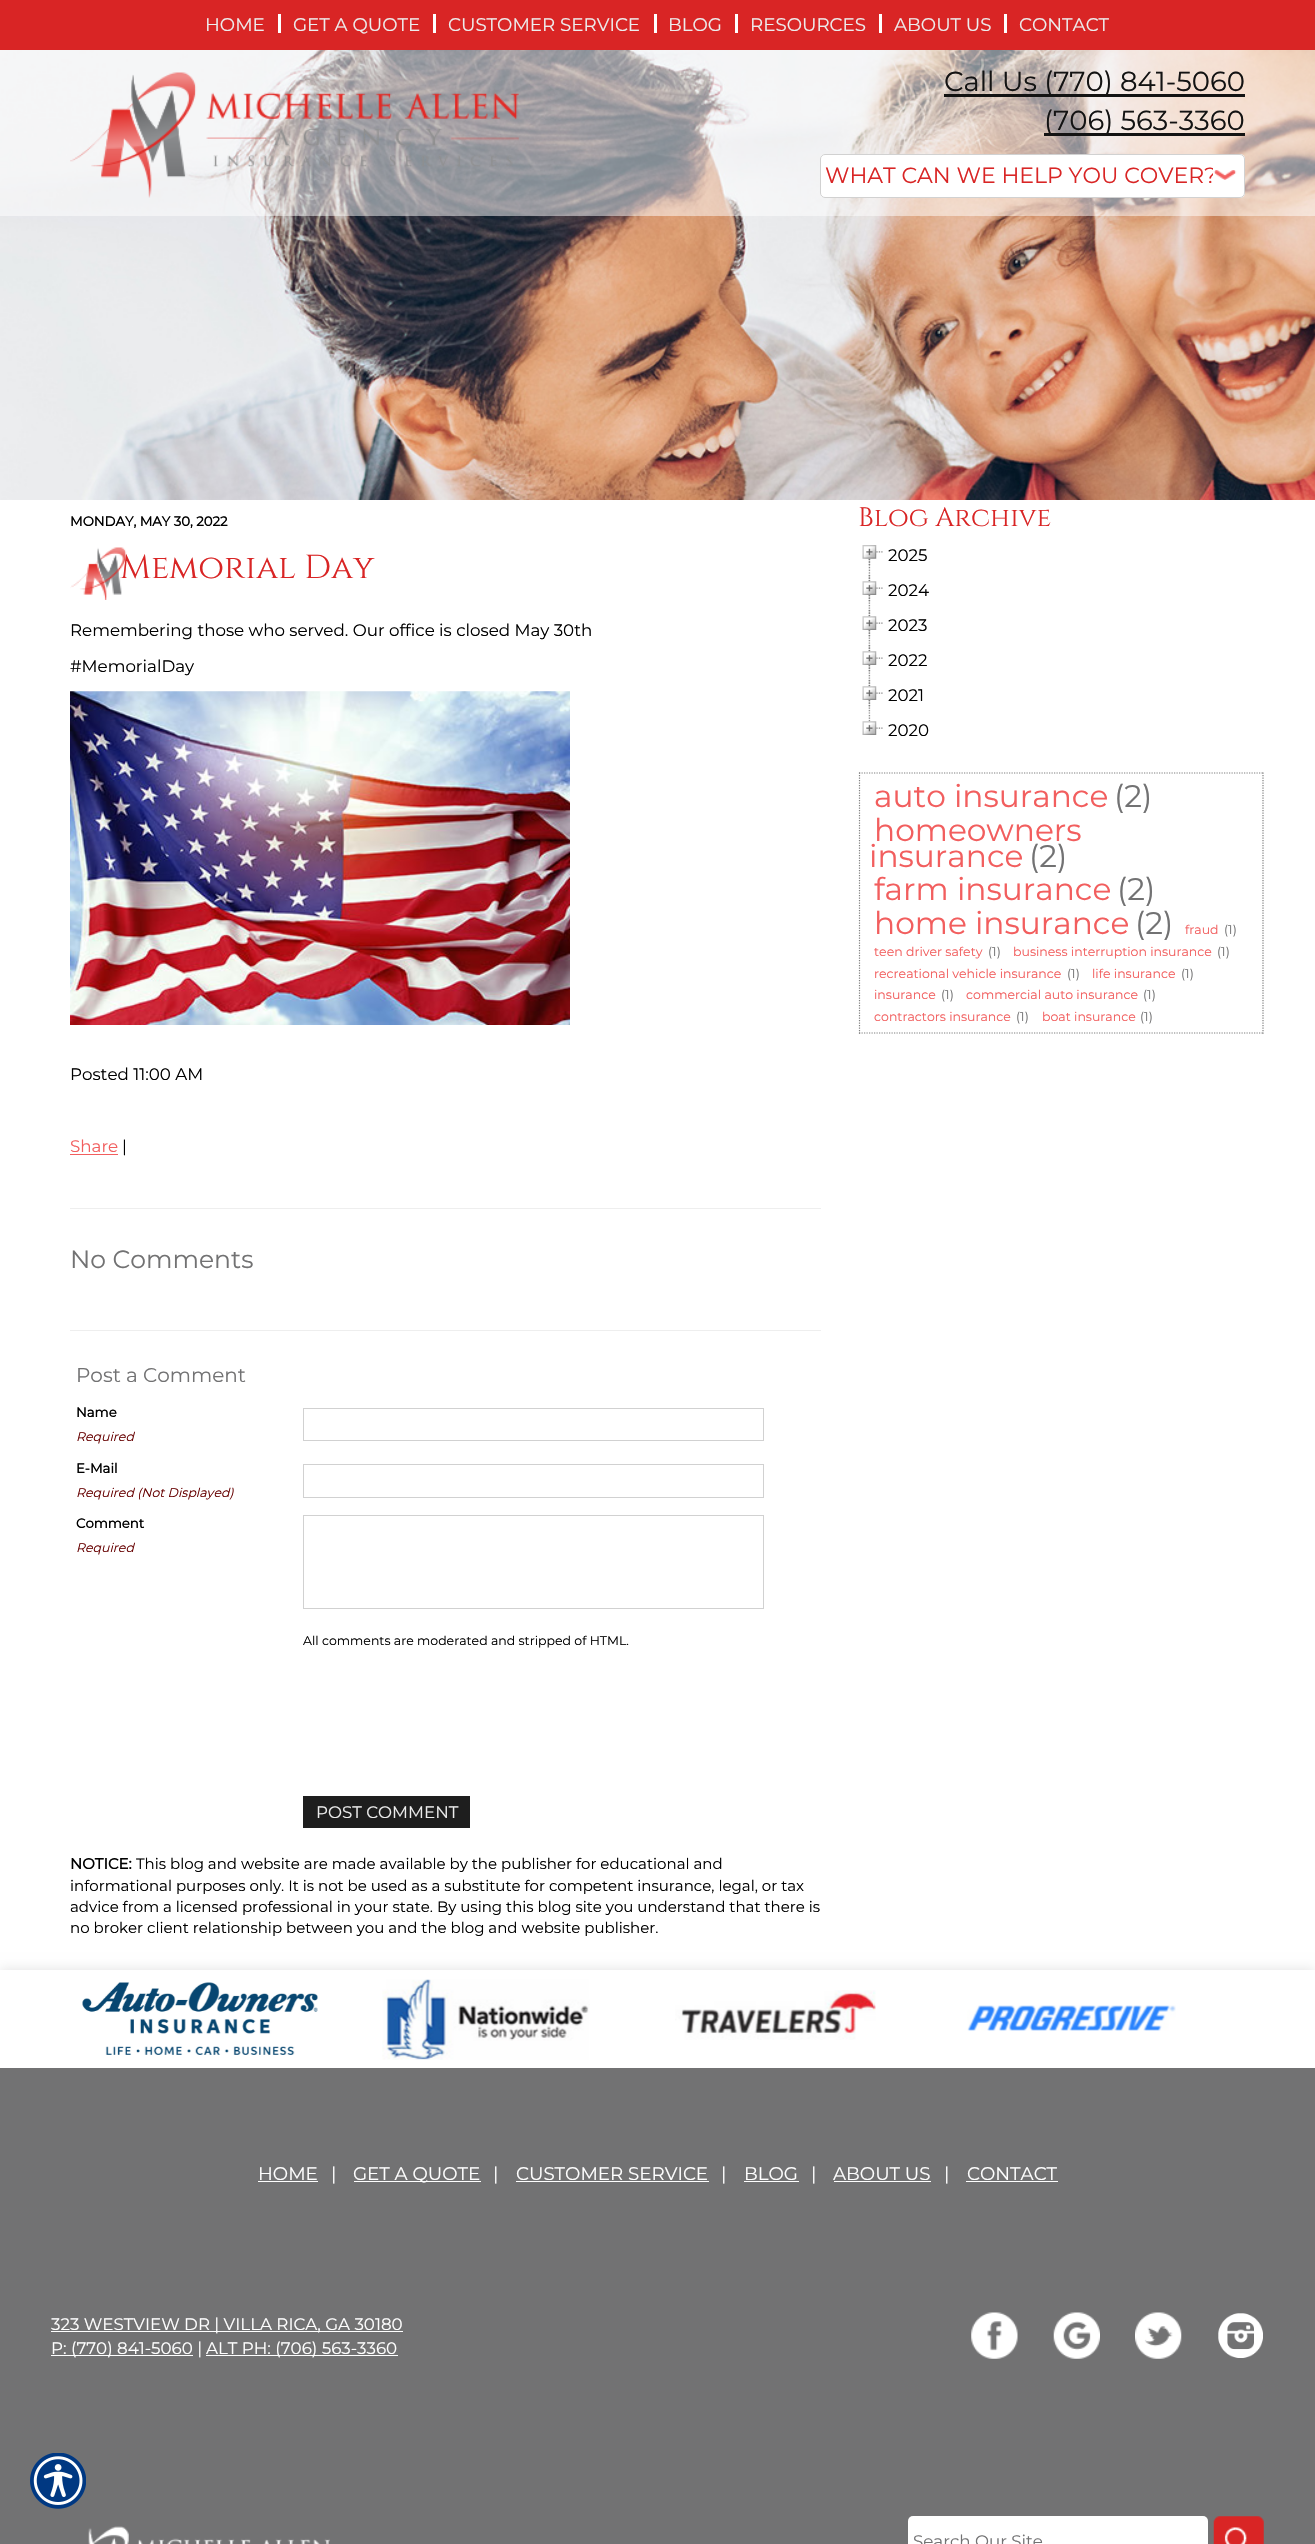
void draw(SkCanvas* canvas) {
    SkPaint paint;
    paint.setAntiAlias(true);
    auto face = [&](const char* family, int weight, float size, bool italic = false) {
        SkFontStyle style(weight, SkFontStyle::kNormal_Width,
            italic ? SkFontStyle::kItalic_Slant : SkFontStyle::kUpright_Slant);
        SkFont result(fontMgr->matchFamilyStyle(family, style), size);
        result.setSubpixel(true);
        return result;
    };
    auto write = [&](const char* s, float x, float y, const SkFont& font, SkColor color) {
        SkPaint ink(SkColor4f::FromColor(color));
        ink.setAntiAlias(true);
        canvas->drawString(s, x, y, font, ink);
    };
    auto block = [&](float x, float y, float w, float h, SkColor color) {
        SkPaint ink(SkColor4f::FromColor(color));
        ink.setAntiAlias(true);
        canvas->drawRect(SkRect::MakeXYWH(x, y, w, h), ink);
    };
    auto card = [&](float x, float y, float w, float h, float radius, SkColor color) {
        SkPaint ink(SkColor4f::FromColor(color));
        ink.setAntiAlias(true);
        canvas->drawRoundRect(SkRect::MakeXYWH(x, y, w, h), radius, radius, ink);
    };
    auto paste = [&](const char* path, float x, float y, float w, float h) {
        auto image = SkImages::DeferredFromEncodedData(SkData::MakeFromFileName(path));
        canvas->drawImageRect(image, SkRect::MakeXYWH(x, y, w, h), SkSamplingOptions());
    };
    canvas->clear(SK_ColorWHITE);
    paste("pic3.png", 0, 50, 1315, 450);
    block(0, 50, 1315, 166, SkColorSetARGB(128, 255, 255, 255));
    block(0, 0, 1315, 50, SkColorSetRGB(217, 37, 37));
    auto kFont1 = face("Montserrat", 100, 18.25f);
    write("HOME", 205, 31, kFont1, SkColorSetRGB(237, 237, 237));
    block(278, 14, 3, 19, SK_ColorWHITE);
    write("GET A QUOTE", 293, 31, kFont1, SkColorSetRGB(237, 237, 237));
    block(433, 14, 3, 19, SK_ColorWHITE);
    write("CUSTOMER SERVICE", 448, 31, kFont1, SkColorSetRGB(237, 237, 237));
    block(654, 14, 3, 19, SK_ColorWHITE);
    write("BLOG", 668, 31, kFont1, SkColorSetRGB(237, 237, 237));
    block(735, 14, 3, 19, SK_ColorWHITE);
    write("RESOURCES", 750, 31, kFont1, SkColorSetRGB(237, 237, 237));
    block(879, 14, 3, 19, SK_ColorWHITE);
    write("ABOUT US", 894, 31, kFont1, SkColorSetRGB(237, 237, 237));
    block(1004, 14, 3, 19, SK_ColorWHITE);
    write("CONTACT", 1019, 31, kFont1, SkColorSetRGB(237, 237, 237));
    paste("pic1.png", 70, 72, 449, 126);
    block(944, 94, 301, 3, SkColorSetRGB(19, 19, 19));
    auto kFont2 = face("Montserrat", 100, 27.5f);
    write("Call Us (770) 841-5060", 944, 91, kFont2, SkColorSetRGB(19, 19, 19));
    block(1044, 133, 201, 3, SkColorSetRGB(19, 19, 19));
    write("(706) 563-3360", 1044, 130, kFont2, SkColorSetRGB(19, 19, 19));
    card(820, 154, 425, 44, 5, SK_ColorWHITE);
    paste("pic2.png", 1213, 170, 24, 10);
    paint.setStyle(SkPaint::kStroke_Style);
    paint.setStrokeWidth(1);
    paint.setColor(SkColorSetRGB(209, 209, 209));
    canvas->drawRoundRect(SkRect::MakeXYWH(820.5f, 154.5f, 424, 43), 4.5f, 4.5f, paint);
    canvas->save();
    canvas->clipRect(SkRect::MakeXYWH(825, 160, 388, 31));
    auto kFont3 = face("Montserrat", 100, 22);
    write("WHAT CAN WE HELP YOU COVER?", 825, 183, kFont3, SkColorSetRGB(217, 37, 37));
    canvas->restore();
    auto kFont4 = face("Montserrat", 700, 13.25f);
    write("MONDAY, MAY 30, 2022", 70, 526, kFont4, SK_ColorBLACK);
    paste("pic4.png", 70, 547, 57, 53);
    auto kFont5 = face("Cinzel", 400, 33.25f);
    write("Memorial Day", 120, 578, kFont5, SkColorSetRGB(217, 37, 37));
    auto kFont6 = face("Montserrat", 100, 16.7f);
    write("Remembering those who served. Our office is closed May 30th", 70, 636, kFont6, SK_ColorBLACK);
    write("#MemorialDay", 70, 672, kFont6, SK_ColorBLACK);
    paste("pic5.png", 70, 691, 500, 334);
    write("Posted 11:00 AM", 70, 1080, kFont6, SK_ColorBLACK);
    write("Share", 70, 1152, kFont6, SkColorSetRGB(242, 94, 94));
    block(70, 1154, 48, 1, SkColorSetRGB(242, 94, 94));
    write("|", 122, 1152, kFont6, SK_ColorBLACK);
    block(70, 1208, 751, 1, SkColorSetRGB(238, 238, 238));
    auto kFont7 = face("Montserrat", 100, 25);
    write("No Comments", 70, 1268, kFont7, SkColorSetRGB(114, 114, 115));
    block(70, 1330, 751, 1, SkColorSetRGB(238, 238, 238));
    auto kFont8 = face("Montserrat", 100, 20);
    write("Post a Comment", 76, 1382, kFont8, SkColorSetRGB(114, 114, 115));
    write("Name", 76, 1417, kFont4, SK_ColorBLACK);
    auto kFont9 = face("Montserrat", 100, 12.5f, true);
    write("Required", 76, 1441, kFont9, SkColorSetRGB(102, 0, 0));
    canvas->drawRect(SkRect::MakeXYWH(303.5f, 1408.5f, 460, 32), paint);
    write("E-Mail", 76, 1473, kFont4, SK_ColorBLACK);
    write("Required (Not Displayed)", 76, 1497, kFont9, SkColorSetRGB(102, 0, 0));
    canvas->drawRect(SkRect::MakeXYWH(303.5f, 1464.5f, 460, 33), paint);
    write("Comment", 76, 1528, kFont4, SK_ColorBLACK);
    write("Required", 76, 1552, kFont9, SkColorSetRGB(102, 0, 0));
    canvas->drawRect(SkRect::MakeXYWH(303.5f, 1515.5f, 460, 93), paint);
    auto kFont10 = face("Montserrat", 100, 12.5f);
    write("All comments are moderated and stripped of HTML.", 303, 1645, kFont10, SK_ColorBLACK);
    block(303, 1796, 167, 32, SkColorSetRGB(30, 30, 30));
    write("POST COMMENT", 316, 1818, kFont6, SkColorSetRGB(237, 237, 237));
    auto kFont11 = face("Montserrat", 700, 15);
    write("NOTICE:", 70, 1869, kFont11, SK_ColorBLACK);
    auto kFont12 = face("Montserrat", 100, 15);
    write("This blog and website are made available by the publisher for educational and", 136, 1869, kFont12, SK_ColorBLACK);
    write("informational purposes only. It is not be used as a substitute for competent insurance, legal, or tax", 70, 1891, kFont12, SK_ColorBLACK);
    write("advice from a licensed professional in your state. By using this blog site you understand that there is", 70, 1912, kFont12, SK_ColorBLACK);
    write("no broker client relationship between you and the blog and website publisher.", 70, 1933, kFont12, SK_ColorBLACK);
    auto kFont13 = face("Cinzel", 400, 26.75f);
    write("Blog Archive", 858, 526, kFont13, SkColorSetRGB(217, 37, 37));
    paste("pic6.png", 868, 558, 3, 16);
    paste("pic7.png", 868, 551, 15, 14);
    paste("pic8.png", 862, 545, 15, 14);
    write("2025", 888, 561, kFont6, SK_ColorBLACK);
    paste("pic9.png", 868, 573, 3, 36);
    paste("pic10.png", 868, 574, 15, 28);
    paste("pic11.png", 862, 581, 15, 14);
    write("2024", 888, 596, kFont6, SK_ColorBLACK);
    paste("pic12.png", 868, 608, 3, 36);
    paste("pic13.png", 868, 609, 15, 28);
    paste("pic14.png", 862, 616, 15, 14);
    write("2023", 888, 631, kFont6, SK_ColorBLACK);
    paste("pic12.png", 868, 643, 3, 36);
    paste("pic13.png", 868, 644, 15, 28);
    paste("pic14.png", 862, 651, 15, 14);
    write("2022", 888, 666, kFont6, SK_ColorBLACK);
    paste("pic12.png", 868, 678, 3, 36);
    paste("pic13.png", 868, 679, 15, 28);
    paste("pic14.png", 862, 686, 15, 14);
    write("2021", 888, 701, kFont6, SK_ColorBLACK);
    paste("pic15.png", 868, 714, 15, 15);
    paste("pic16.png", 862, 721, 15, 14);
    write("2020", 888, 736, kFont6, SK_ColorBLACK);
    paint.setStrokeWidth(1.2f);
    paint.setColor(SkColorSetRGB(127, 127, 127));
    paint.setPathEffect(SkDashPathEffect::Make({{1.25f, 1.25f}}, 0));
    canvas->drawPath(SkPathBuilder().moveTo(859, 773).lineTo(1264, 773).detach(), paint);
    paint.setPathEffect(nullptr);
    paint.setPathEffect(SkDashPathEffect::Make({{1.25f, 1.25f}}, 0));
    canvas->drawPath(SkPathBuilder().moveTo(1263, 772.5f).lineTo(1263, 1034).detach(), paint);
    paint.setPathEffect(nullptr);
    paint.setPathEffect(SkDashPathEffect::Make({{1.25f, 1.25f}}, 0));
    canvas->drawPath(SkPathBuilder().moveTo(859, 1033).lineTo(1264, 1033).detach(), paint);
    paint.setPathEffect(nullptr);
    paint.setPathEffect(SkDashPathEffect::Make({{1.25f, 1.25f}}, 0));
    canvas->drawPath(SkPathBuilder().moveTo(859.5f, 772.5f).lineTo(859.5f, 1034).detach(), paint);
    paint.setPathEffect(nullptr);
    auto kFont14 = face("Montserrat", 100, 31.25f);
    write("auto insurance", 874, 807, kFont14, SkColorSetRGB(242, 94, 94));
    write("(2)", 1114, 807, kFont14, SkColorSetRGB(114, 114, 115));
    write("homeowners", 874, 841, kFont14, SkColorSetRGB(242, 94, 94));
    write("insurance", 869, 867, kFont14, SkColorSetRGB(242, 94, 94));
    write("(2)", 1029, 867, kFont14, SkColorSetRGB(114, 114, 115));
    write("farm insurance", 874, 900, kFont14, SkColorSetRGB(242, 94, 94));
    write("(2)", 1117, 900, kFont14, SkColorSetRGB(114, 114, 115));
    write("home insurance", 874, 934, kFont14, SkColorSetRGB(242, 94, 94));
    write("(2)", 1135, 934, kFont14, SkColorSetRGB(114, 114, 115));
    write("fraud", 1185, 934, kFont10, SkColorSetRGB(242, 94, 94));
    write("(1)", 1224, 934, kFont10, SkColorSetRGB(114, 114, 115));
    write("teen driver safety", 874, 956, kFont10, SkColorSetRGB(242, 94, 94));
    write("(1)", 988, 956, kFont10, SkColorSetRGB(114, 114, 115));
    write("business interruption insurance", 1013, 956, kFont10, SkColorSetRGB(242, 94, 94));
    write("(1)", 1217, 956, kFont10, SkColorSetRGB(114, 114, 115));
    write("recreational vehicle insurance", 874, 978, kFont10, SkColorSetRGB(242, 94, 94));
    write("(1)", 1067, 978, kFont10, SkColorSetRGB(114, 114, 115));
    write("life insurance", 1092, 978, kFont10, SkColorSetRGB(242, 94, 94));
    write("(1)", 1181, 978, kFont10, SkColorSetRGB(114, 114, 115));
    write("insurance", 874, 999, kFont10, SkColorSetRGB(242, 94, 94));
    write("(1)", 941, 999, kFont10, SkColorSetRGB(114, 114, 115));
    write("commercial auto insurance", 966, 999, kFont10, SkColorSetRGB(242, 94, 94));
    write("(1)", 1143, 999, kFont10, SkColorSetRGB(114, 114, 115));
    write("contractors insurance", 874, 1021, kFont10, SkColorSetRGB(242, 94, 94));
    write("(1)", 1016, 1021, kFont10, SkColorSetRGB(114, 114, 115));
    write("boat insurance", 1042, 1021, kFont10, SkColorSetRGB(242, 94, 94));
    write("(1)", 1140, 1021, kFont10, SkColorSetRGB(114, 114, 115));
    paint.setStyle(SkPaint::kFill_Style);
    paint.setColor(SkColorSetARGB(31, 0, 0, 0));
    paint.setMaskFilter(SkMaskFilter::MakeBlur(kNormal_SkBlurStyle, 6));
    canvas->drawRect(SkRect::MakeXYWH(0, 1970, 1315, 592), paint);
    paint.setMaskFilter(nullptr);
    block(0, 2068, 1315, 476, SkColorSetRGB(114, 114, 115));
    block(0, 1970, 1315, 98, SK_ColorWHITE);
    paste("pic17.png", 82, 1982, 236, 73);
    paste("pic18.png", 382, 1979, 208, 81);
    paste("pic19.png", 675, 1990, 201, 50);
    paste("pic20.png", 967, 2005, 209, 26);
    write("HOME", 258, 2180, kFont1, SK_ColorWHITE);
    block(258, 2181, 60, 1, SK_ColorWHITE);
    write("|", 331, 2180, kFont1, SK_ColorWHITE);
    block(354, 2181, 127, 1, SK_ColorWHITE);
    write("GET A QUOTE", 353, 2180, kFont1, SK_ColorWHITE);
    write("|", 493, 2180, kFont1, SK_ColorWHITE);
    write("CUSTOMER SERVICE", 516, 2180, kFont1, SK_ColorWHITE);
    block(516, 2181, 193, 1, SK_ColorWHITE);
    write("|", 721, 2180, kFont1, SK_ColorWHITE);
    write("BLOG", 744, 2180, kFont1, SK_ColorWHITE);
    block(744, 2181, 55, 1, SK_ColorWHITE);
    write("|", 811, 2180, kFont1, SK_ColorWHITE);
    write("ABOUT US", 833, 2180, kFont1, SK_ColorWHITE);
    block(834, 2181, 97, 1, SK_ColorWHITE);
    write("|", 944, 2180, kFont1, SK_ColorWHITE);
    write("CONTACT", 967, 2180, kFont1, SK_ColorWHITE);
    block(966, 2181, 92, 1, SK_ColorWHITE);
    block(51, 2331, 352, 1, SK_ColorWHITE);
    write("323 WESTVIEW DR | VILLA RICA, GA 30180", 51, 2330, kFont6, SK_ColorWHITE);
    block(51, 2355, 142, 1, SK_ColorWHITE);
    write("P: (770) 841-5060 |", 51, 2354, kFont6, SK_ColorWHITE);
    block(206, 2355, 192, 1, SK_ColorWHITE);
    write("ALT PH: (706) 563-3360", 206, 2354, kFont6, SK_ColorWHITE);
    paste("pic21.png", 971, 2312, 47, 47);
    paste("pic22.png", 1053, 2312, 47, 47);
    paste("pic23.png", 1135, 2312, 47, 47);
    paste("pic24.png", 1218, 2313, 45, 45);
    paste("pic25.png", 88, 2526, 242, 18);
    card(908, 2516, 300, 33, 5, SK_ColorWHITE);
    write("Search Our Site", 913, 2547, kFont6, SkColorSetRGB(114, 114, 115));
    paste("pic26.png", 1213, 2516, 51, 28);
    paste("pic27.png", 30, 2453, 56, 56);
}
